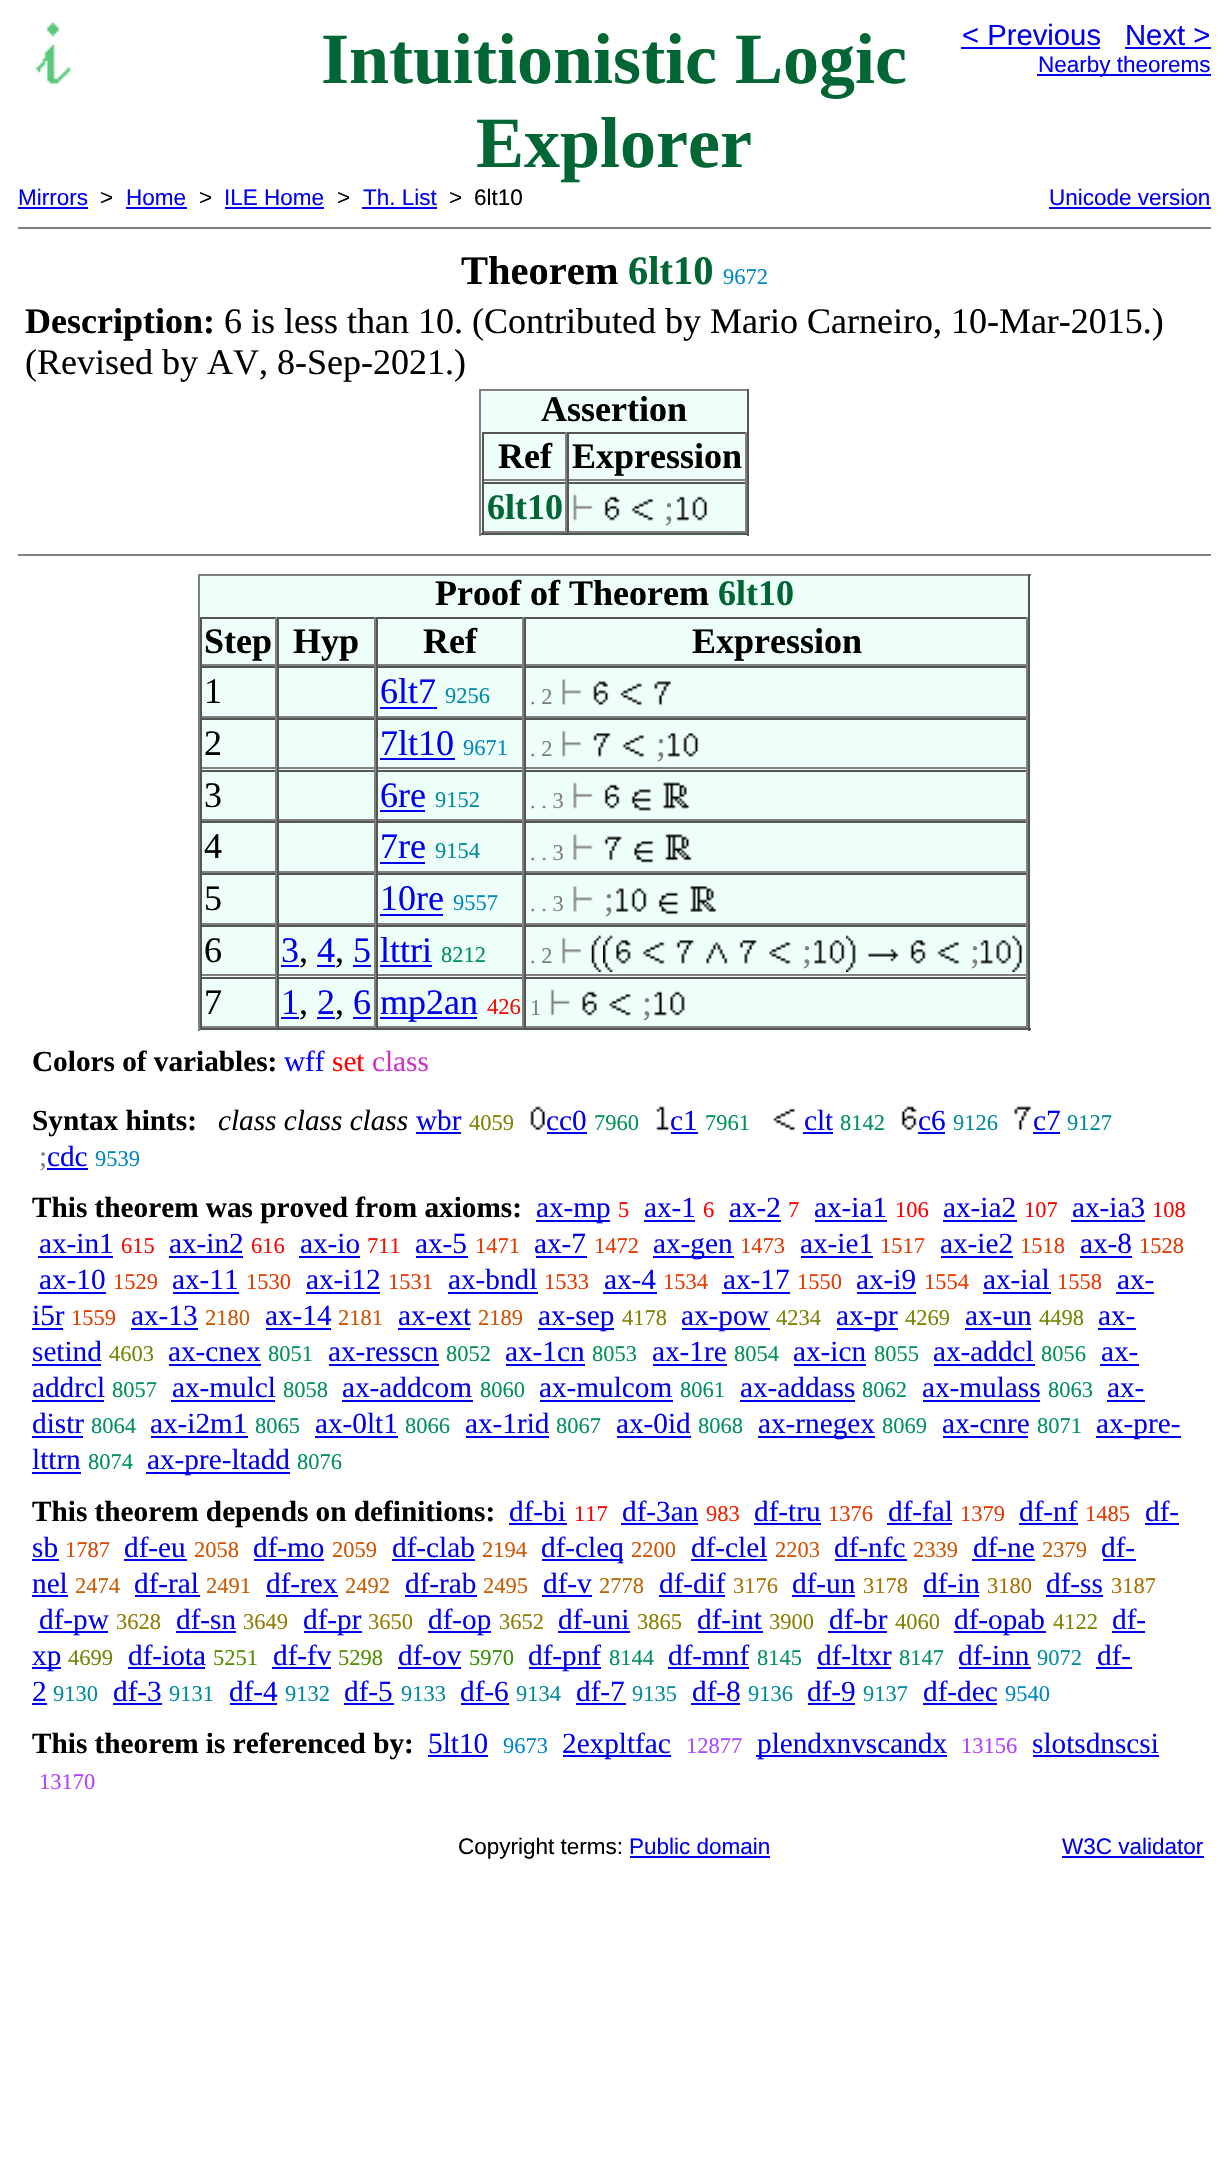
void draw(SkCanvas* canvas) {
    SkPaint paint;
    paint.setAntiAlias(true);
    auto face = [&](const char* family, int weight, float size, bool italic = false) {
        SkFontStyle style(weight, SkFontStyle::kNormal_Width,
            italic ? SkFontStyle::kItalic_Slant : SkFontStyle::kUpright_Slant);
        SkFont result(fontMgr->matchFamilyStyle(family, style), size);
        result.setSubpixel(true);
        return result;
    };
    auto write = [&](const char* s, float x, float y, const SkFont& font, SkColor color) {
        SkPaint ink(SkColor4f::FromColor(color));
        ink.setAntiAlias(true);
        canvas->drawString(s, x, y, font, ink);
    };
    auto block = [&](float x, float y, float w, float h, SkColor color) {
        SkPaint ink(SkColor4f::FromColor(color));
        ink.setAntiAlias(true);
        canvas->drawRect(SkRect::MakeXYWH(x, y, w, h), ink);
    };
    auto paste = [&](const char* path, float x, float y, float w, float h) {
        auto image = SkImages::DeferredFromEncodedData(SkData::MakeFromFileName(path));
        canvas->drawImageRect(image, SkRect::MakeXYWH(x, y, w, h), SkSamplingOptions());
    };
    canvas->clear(SK_ColorWHITE);
    paste("pic1.png", 35, 22, 36, 62);
    auto kFont1 = face("Liberation Serif", 700, 72);
    write("Intuitionistic Logic", 321, 83, kFont1, SkColorSetRGB(0, 102, 51));
    write("Explorer", 476, 167, kFont1, SkColorSetRGB(0, 102, 51));
    auto kFont2 = face("Liberation Sans", 400, 29.25f);
    write("< Previous", 962, 45, kFont2, SkColorSetRGB(0, 0, 238));
    block(961, 47, 139, 2, SkColorSetRGB(0, 0, 238));
    write("Next >", 1125, 45, kFont2, SkColorSetRGB(0, 0, 238));
    block(1125, 47, 86, 2, SkColorSetRGB(0, 0, 238));
    block(1037, 74, 174, 2, SkColorSetRGB(0, 0, 238));
    auto kFont3 = face("Liberation Sans", 400, 22.5f);
    write("Nearby theorems", 1038, 72, kFont3, SkColorSetRGB(0, 0, 238));
    write("Mirrors", 18, 205, kFont3, SkColorSetRGB(0, 0, 238));
    block(18, 207, 70, 2, SkColorSetRGB(0, 0, 238));
    write(">", 100, 205, kFont3, SK_ColorBLACK);
    write("Home", 126, 205, kFont3, SkColorSetRGB(0, 0, 238));
    block(126, 207, 61, 2, SkColorSetRGB(0, 0, 238));
    write(">", 199, 205, kFont3, SK_ColorBLACK);
    write("ILE Home", 224, 205, kFont3, SkColorSetRGB(0, 0, 238));
    block(225, 207, 99, 2, SkColorSetRGB(0, 0, 238));
    write(">", 337, 205, kFont3, SK_ColorBLACK);
    write("Th. List", 363, 205, kFont3, SkColorSetRGB(0, 0, 238));
    block(362, 207, 75, 2, SkColorSetRGB(0, 0, 238));
    write(">", 449, 205, kFont3, SK_ColorBLACK);
    write("6lt10", 474, 205, kFont3, SK_ColorBLACK);
    write("Unicode version", 1049, 205, kFont3, SkColorSetRGB(0, 0, 238));
    block(1049, 207, 162, 2, SkColorSetRGB(0, 0, 238));
    block(18, 227, 1193, 2, SkColorSetRGB(128, 128, 128));
    auto kFont4 = face("Liberation Serif", 700, 40.5f);
    write("Theorem", 461, 284, kFont4, SK_ColorBLACK);
    write("6lt10", 628, 284, kFont4, SkColorSetRGB(0, 102, 51));
    auto kFont5 = face("Liberation Serif", 400, 22.5f);
    write("9672", 723, 284, kFont5, SkColorSetRGB(0, 135, 201));
    auto kFont6 = face("Liberation Serif", 700, 36);
    write("Description:", 25, 333, kFont6, SK_ColorBLACK);
    auto kFont7 = face("Liberation Serif", 400, 36);
    write("6 is less than 10. (Contributed by Mario Carneiro, 10-Mar-2015.)", 224, 333, kFont7, SK_ColorBLACK);
    write("(Revised by AV, 8-Sep-2021.)", 25, 374, kFont7, SK_ColorBLACK);
    block(481, 391, 266, 145, SkColorSetRGB(238, 255, 250));
    block(479, 389, 270, 2, SkColorSetRGB(128, 128, 128));
    block(747, 389, 2, 147, SkColorSetRGB(85, 85, 85));
    block(479, 533, 270, 2, SkColorSetRGB(85, 85, 85));
    block(479, 389, 2, 147, SkColorSetRGB(128, 128, 128));
    write("Assertion", 541, 421, kFont6, SK_ColorBLACK);
    block(482, 432, 265, 2, SkColorSetRGB(85, 85, 85));
    block(565, 432, 2, 50, SkColorSetRGB(128, 128, 128));
    block(482, 479, 85, 2, SkColorSetRGB(128, 128, 128));
    block(482, 432, 2, 50, SkColorSetRGB(85, 85, 85));
    write("Ref", 498, 468, kFont6, SK_ColorBLACK);
    block(745, 432, 2, 50, SkColorSetRGB(128, 128, 128));
    block(567, 479, 180, 2, SkColorSetRGB(128, 128, 128));
    block(567, 432, 2, 50, SkColorSetRGB(85, 85, 85));
    write("Expression", 572, 468, kFont6, SK_ColorBLACK);
    block(482, 482, 265, 2, SkColorSetRGB(85, 85, 85));
    block(565, 482, 2, 51, SkColorSetRGB(128, 128, 128));
    block(482, 531, 85, 2, SkColorSetRGB(128, 128, 128));
    block(482, 482, 2, 51, SkColorSetRGB(85, 85, 85));
    write("6lt10", 487, 519, kFont6, SkColorSetRGB(0, 102, 51));
    block(745, 482, 2, 51, SkColorSetRGB(128, 128, 128));
    block(567, 531, 180, 2, SkColorSetRGB(128, 128, 128));
    block(567, 482, 2, 51, SkColorSetRGB(85, 85, 85));
    paste("pic2.png", 573, 494, 20, 27);
    paste("pic3.png", 604, 496, 16, 25);
    paste("pic4.png", 631, 499, 23, 22);
    write(";", 664, 520, kFont7, SkColorSetRGB(128, 128, 128));
    paste("pic5.png", 676, 496, 14, 25);
    paste("pic6.png", 692, 496, 16, 25);
    block(18, 554, 1193, 2, SkColorSetRGB(128, 128, 128));
    block(200, 576, 831, 455, SkColorSetRGB(238, 255, 250));
    block(198, 574, 833, 2, SkColorSetRGB(128, 128, 128));
    block(1028, 574, 2, 457, SkColorSetRGB(85, 85, 85));
    block(198, 1028, 833, 2, SkColorSetRGB(85, 85, 85));
    block(198, 574, 2, 457, SkColorSetRGB(128, 128, 128));
    write("Proof of Theorem", 435, 605, kFont6, SK_ColorBLACK);
    write("6lt10", 718, 605, kFont6, SkColorSetRGB(0, 102, 51));
    block(200, 617, 828, 2, SkColorSetRGB(85, 85, 85));
    block(275, 617, 2, 49, SkColorSetRGB(128, 128, 128));
    block(200, 664, 77, 2, SkColorSetRGB(128, 128, 128));
    block(200, 617, 2, 49, SkColorSetRGB(85, 85, 85));
    write("Step", 204, 653, kFont6, SK_ColorBLACK);
    block(374, 617, 2, 49, SkColorSetRGB(128, 128, 128));
    block(277, 664, 99, 2, SkColorSetRGB(128, 128, 128));
    block(277, 617, 2, 49, SkColorSetRGB(85, 85, 85));
    write("Hyp", 293, 653, kFont6, SK_ColorBLACK);
    block(522, 617, 2, 49, SkColorSetRGB(128, 128, 128));
    block(376, 664, 148, 2, SkColorSetRGB(128, 128, 128));
    block(376, 617, 2, 49, SkColorSetRGB(85, 85, 85));
    write("Ref", 423, 653, kFont6, SK_ColorBLACK);
    block(1026, 617, 2, 49, SkColorSetRGB(128, 128, 128));
    block(524, 664, 504, 2, SkColorSetRGB(128, 128, 128));
    block(524, 617, 2, 49, SkColorSetRGB(85, 85, 85));
    write("Expression", 692, 653, kFont6, SK_ColorBLACK);
    block(200, 666, 828, 2, SkColorSetRGB(85, 85, 85));
    block(275, 666, 2, 52, SkColorSetRGB(128, 128, 128));
    block(200, 716, 77, 2, SkColorSetRGB(128, 128, 128));
    block(200, 666, 2, 52, SkColorSetRGB(85, 85, 85));
    write("1", 204, 703, kFont7, SK_ColorBLACK);
    block(374, 666, 2, 52, SkColorSetRGB(128, 128, 128));
    block(277, 716, 99, 2, SkColorSetRGB(128, 128, 128));
    block(277, 666, 2, 52, SkColorSetRGB(85, 85, 85));
    block(522, 666, 2, 52, SkColorSetRGB(128, 128, 128));
    block(376, 716, 148, 2, SkColorSetRGB(128, 128, 128));
    block(376, 666, 2, 52, SkColorSetRGB(85, 85, 85));
    write("6lt7", 380, 703, kFont7, SkColorSetRGB(0, 0, 238));
    block(380, 707, 57, 2, SkColorSetRGB(0, 0, 238));
    write("9256", 445, 703, kFont5, SkColorSetRGB(0, 140, 162));
    block(1026, 666, 2, 52, SkColorSetRGB(128, 128, 128));
    block(524, 716, 504, 2, SkColorSetRGB(128, 128, 128));
    block(524, 666, 2, 52, SkColorSetRGB(85, 85, 85));
    write(". 2", 530, 704, kFont5, SkColorSetRGB(128, 128, 128));
    paste("pic7.png", 562, 679, 20, 26);
    paste("pic8.png", 593, 681, 16, 24);
    paste("pic9.png", 620, 683, 22, 22);
    paste("pic10.png", 654, 681, 18, 24);
    block(200, 718, 828, 2, SkColorSetRGB(85, 85, 85));
    block(275, 718, 2, 52, SkColorSetRGB(128, 128, 128));
    block(200, 767, 77, 2, SkColorSetRGB(128, 128, 128));
    block(200, 718, 2, 52, SkColorSetRGB(85, 85, 85));
    write("2", 204, 755, kFont7, SK_ColorBLACK);
    block(374, 718, 2, 52, SkColorSetRGB(128, 128, 128));
    block(277, 767, 99, 2, SkColorSetRGB(128, 128, 128));
    block(277, 718, 2, 52, SkColorSetRGB(85, 85, 85));
    block(522, 718, 2, 52, SkColorSetRGB(128, 128, 128));
    block(376, 767, 148, 2, SkColorSetRGB(128, 128, 128));
    block(376, 718, 2, 52, SkColorSetRGB(85, 85, 85));
    write("7lt10", 380, 755, kFont7, SkColorSetRGB(0, 0, 238));
    block(380, 758, 75, 2, SkColorSetRGB(0, 0, 238));
    write("9671", 463, 755, kFont5, SkColorSetRGB(0, 135, 201));
    block(1026, 718, 2, 52, SkColorSetRGB(128, 128, 128));
    block(524, 767, 504, 2, SkColorSetRGB(128, 128, 128));
    block(524, 718, 2, 52, SkColorSetRGB(85, 85, 85));
    write(". 2", 530, 756, kFont5, SkColorSetRGB(128, 128, 128));
    paste("pic11.png", 562, 730, 20, 27);
    paste("pic12.png", 593, 733, 18, 24);
    paste("pic13.png", 622, 735, 23, 22);
    write(";", 656, 756, kFont7, SkColorSetRGB(128, 128, 128));
    paste("pic14.png", 667, 733, 14, 24);
    paste("pic15.png", 683, 733, 16, 24);
    block(200, 770, 828, 2, SkColorSetRGB(85, 85, 85));
    block(275, 770, 2, 51, SkColorSetRGB(128, 128, 128));
    block(200, 819, 77, 2, SkColorSetRGB(128, 128, 128));
    block(200, 770, 2, 51, SkColorSetRGB(85, 85, 85));
    write("3", 204, 807, kFont7, SK_ColorBLACK);
    block(374, 770, 2, 51, SkColorSetRGB(128, 128, 128));
    block(277, 819, 99, 2, SkColorSetRGB(128, 128, 128));
    block(277, 770, 2, 51, SkColorSetRGB(85, 85, 85));
    block(522, 770, 2, 51, SkColorSetRGB(128, 128, 128));
    block(376, 819, 148, 2, SkColorSetRGB(128, 128, 128));
    block(376, 770, 2, 51, SkColorSetRGB(85, 85, 85));
    write("6re", 380, 807, kFont7, SkColorSetRGB(0, 0, 238));
    block(380, 810, 45, 2, SkColorSetRGB(0, 0, 238));
    write("9152", 435, 807, kFont5, SkColorSetRGB(0, 140, 156));
    block(1026, 770, 2, 51, SkColorSetRGB(128, 128, 128));
    block(524, 819, 504, 2, SkColorSetRGB(128, 128, 128));
    block(524, 770, 2, 51, SkColorSetRGB(85, 85, 85));
    write(". . 3", 530, 808, kFont5, SkColorSetRGB(128, 128, 128));
    paste("pic2.png", 573, 782, 20, 27);
    paste("pic16.png", 604, 784, 16, 25);
    paste("pic17.png", 631, 789, 20, 22);
    paste("pic18.png", 663, 782, 27, 27);
    block(200, 821, 828, 2, SkColorSetRGB(85, 85, 85));
    block(275, 821, 2, 52, SkColorSetRGB(128, 128, 128));
    block(200, 871, 77, 2, SkColorSetRGB(128, 128, 128));
    block(200, 821, 2, 52, SkColorSetRGB(85, 85, 85));
    write("4", 204, 858, kFont7, SK_ColorBLACK);
    block(374, 821, 2, 52, SkColorSetRGB(128, 128, 128));
    block(277, 871, 99, 2, SkColorSetRGB(128, 128, 128));
    block(277, 821, 2, 52, SkColorSetRGB(85, 85, 85));
    block(522, 821, 2, 52, SkColorSetRGB(128, 128, 128));
    block(376, 871, 148, 2, SkColorSetRGB(128, 128, 128));
    block(376, 821, 2, 52, SkColorSetRGB(85, 85, 85));
    write("7re", 380, 858, kFont7, SkColorSetRGB(0, 0, 238));
    block(380, 862, 45, 2, SkColorSetRGB(0, 0, 238));
    write("9154", 435, 858, kFont5, SkColorSetRGB(0, 140, 156));
    block(1026, 821, 2, 52, SkColorSetRGB(128, 128, 128));
    block(524, 871, 504, 2, SkColorSetRGB(128, 128, 128));
    block(524, 821, 2, 52, SkColorSetRGB(85, 85, 85));
    write(". . 3", 530, 860, kFont5, SkColorSetRGB(128, 128, 128));
    paste("pic19.png", 573, 834, 20, 27);
    paste("pic20.png", 604, 836, 18, 25);
    paste("pic21.png", 634, 841, 20, 22);
    paste("pic22.png", 665, 834, 27, 27);
    block(200, 873, 828, 2, SkColorSetRGB(85, 85, 85));
    block(275, 873, 2, 52, SkColorSetRGB(128, 128, 128));
    block(200, 923, 77, 2, SkColorSetRGB(128, 128, 128));
    block(200, 873, 2, 52, SkColorSetRGB(85, 85, 85));
    write("5", 204, 910, kFont7, SK_ColorBLACK);
    block(374, 873, 2, 52, SkColorSetRGB(128, 128, 128));
    block(277, 923, 99, 2, SkColorSetRGB(128, 128, 128));
    block(277, 873, 2, 52, SkColorSetRGB(85, 85, 85));
    block(522, 873, 2, 52, SkColorSetRGB(128, 128, 128));
    block(376, 923, 148, 2, SkColorSetRGB(128, 128, 128));
    block(376, 873, 2, 52, SkColorSetRGB(85, 85, 85));
    write("10re", 380, 910, kFont7, SkColorSetRGB(0, 0, 238));
    block(380, 914, 63, 2, SkColorSetRGB(0, 0, 238));
    write("9557", 453, 910, kFont5, SkColorSetRGB(0, 136, 190));
    block(1026, 873, 2, 52, SkColorSetRGB(128, 128, 128));
    block(524, 923, 504, 2, SkColorSetRGB(128, 128, 128));
    block(524, 873, 2, 52, SkColorSetRGB(85, 85, 85));
    write(". . 3", 530, 911, kFont5, SkColorSetRGB(128, 128, 128));
    paste("pic23.png", 573, 886, 20, 26);
    write(";", 604, 911, kFont7, SkColorSetRGB(128, 128, 128));
    paste("pic24.png", 616, 888, 13, 24);
    paste("pic25.png", 631, 888, 16, 24);
    paste("pic26.png", 658, 892, 20, 23);
    paste("pic27.png", 690, 886, 27, 26);
    block(200, 925, 828, 2, SkColorSetRGB(85, 85, 85));
    block(275, 925, 2, 52, SkColorSetRGB(128, 128, 128));
    block(200, 974, 77, 2, SkColorSetRGB(128, 128, 128));
    block(200, 925, 2, 52, SkColorSetRGB(85, 85, 85));
    write("6", 204, 962, kFont7, SK_ColorBLACK);
    block(374, 925, 2, 52, SkColorSetRGB(128, 128, 128));
    block(277, 974, 99, 2, SkColorSetRGB(128, 128, 128));
    block(277, 925, 2, 52, SkColorSetRGB(85, 85, 85));
    write("3", 281, 962, kFont7, SkColorSetRGB(0, 0, 238));
    block(281, 965, 18, 2, SkColorSetRGB(0, 0, 238));
    write("4", 317, 962, kFont7, SkColorSetRGB(0, 0, 238));
    block(317, 965, 18, 2, SkColorSetRGB(0, 0, 238));
    block(522, 925, 2, 52, SkColorSetRGB(128, 128, 128));
    block(376, 974, 148, 2, SkColorSetRGB(128, 128, 128));
    block(376, 925, 2, 52, SkColorSetRGB(85, 85, 85));
    write("5 lttri", 353, 962, kFont7, SkColorSetRGB(0, 0, 238));
    block(353, 965, 18, 2, SkColorSetRGB(0, 0, 238));
    write(",", 299, 962, kFont7, SK_ColorBLACK);
    write(",", 335, 962, kFont7, SK_ColorBLACK);
    write("8212", 441, 962, kFont5, SkColorSetRGB(0, 144, 99));
    block(380, 965, 52, 2, SkColorSetRGB(0, 0, 238));
    block(1026, 925, 2, 52, SkColorSetRGB(128, 128, 128));
    block(524, 974, 504, 2, SkColorSetRGB(128, 128, 128));
    block(524, 925, 2, 52, SkColorSetRGB(85, 85, 85));
    write(". 2", 530, 963, kFont5, SkColorSetRGB(128, 128, 128));
    paste("pic11.png", 562, 937, 20, 27);
    paste("pic28.png", 591, 935, 11, 37);
    paste("pic29.png", 603, 935, 10, 37);
    paste("pic30.png", 616, 940, 15, 24);
    paste("pic31.png", 643, 942, 22, 22);
    paste("pic32.png", 676, 940, 18, 24);
    paste("pic33.png", 706, 942, 22, 22);
    paste("pic32.png", 739, 940, 18, 24);
    paste("pic31.png", 769, 942, 22, 22);
    write(";", 802, 963, kFont7, SkColorSetRGB(128, 128, 128));
    paste("pic34.png", 814, 940, 13, 24);
    paste("pic35.png", 829, 940, 16, 24);
    paste("pic36.png", 846, 935, 10, 37);
    paste("pic37.png", 868, 949, 31, 13);
    paste("pic38.png", 910, 940, 16, 24);
    paste("pic39.png", 937, 942, 23, 22);
    write(";", 970, 963, kFont7, SkColorSetRGB(128, 128, 128));
    paste("pic40.png", 980, 940, 13, 24);
    paste("pic41.png", 996, 940, 15, 24);
    paste("pic42.png", 1012, 935, 11, 37);
    block(200, 977, 828, 2, SkColorSetRGB(85, 85, 85));
    block(275, 977, 2, 51, SkColorSetRGB(128, 128, 128));
    block(200, 1026, 77, 2, SkColorSetRGB(128, 128, 128));
    block(200, 977, 2, 51, SkColorSetRGB(85, 85, 85));
    write("7", 204, 1014, kFont7, SK_ColorBLACK);
    block(374, 977, 2, 51, SkColorSetRGB(128, 128, 128));
    block(277, 1026, 99, 2, SkColorSetRGB(128, 128, 128));
    block(277, 977, 2, 51, SkColorSetRGB(85, 85, 85));
    write("1", 281, 1014, kFont7, SkColorSetRGB(0, 0, 238));
    block(281, 1017, 18, 2, SkColorSetRGB(0, 0, 238));
    write(",", 299, 1014, kFont7, SK_ColorBLACK);
    write("2", 317, 1014, kFont7, SkColorSetRGB(0, 0, 238));
    block(317, 1017, 18, 2, SkColorSetRGB(0, 0, 238));
    write(",", 335, 1014, kFont7, SK_ColorBLACK);
    write("6", 353, 1014, kFont7, SkColorSetRGB(0, 0, 238));
    block(353, 1017, 18, 2, SkColorSetRGB(0, 0, 238));
    block(522, 977, 2, 51, SkColorSetRGB(128, 128, 128));
    block(376, 1026, 148, 2, SkColorSetRGB(128, 128, 128));
    block(376, 977, 2, 51, SkColorSetRGB(85, 85, 85));
    block(380, 1017, 97, 2, SkColorSetRGB(0, 0, 238));
    write("mp2an", 380, 1014, kFont7, SkColorSetRGB(0, 0, 238));
    write("426", 487, 1014, kFont5, SkColorSetRGB(248, 8, 0));
    block(1026, 977, 2, 51, SkColorSetRGB(128, 128, 128));
    block(524, 1026, 504, 2, SkColorSetRGB(128, 128, 128));
    block(524, 977, 2, 51, SkColorSetRGB(85, 85, 85));
    write("1", 530, 1015, kFont5, SkColorSetRGB(128, 128, 128));
    paste("pic43.png", 550, 989, 20, 27);
    paste("pic44.png", 582, 991, 15, 25);
    paste("pic45.png", 609, 994, 22, 22);
    write(";", 642, 1015, kFont7, SkColorSetRGB(128, 128, 128));
    paste("pic46.png", 654, 991, 13, 25);
    paste("pic47.png", 670, 991, 15, 25);
    auto kFont8 = face("Liberation Serif", 700, 29.25f);
    write("Colors of variables:", 32, 1071, kFont8, SK_ColorBLACK);
    auto kFont9 = face("Liberation Serif", 400, 29.25f);
    write("wff", 284, 1071, kFont9, SkColorSetRGB(0, 0, 255));
    write("set", 332, 1071, kFont9, SkColorSetRGB(255, 0, 0));
    write("class", 372, 1071, kFont9, SkColorSetRGB(204, 51, 204));
    write("Syntax hints:", 32, 1130, kFont8, SK_ColorBLACK);
    auto kFont10 = face("Liberation Serif", 400, 29.25f, true);
    write("class class class", 218, 1130, kFont10, SK_ColorBLACK);
    write("wbr", 416, 1130, kFont9, SkColorSetRGB(0, 0, 238));
    block(416, 1132, 45, 2, SkColorSetRGB(0, 0, 238));
    write("4059", 469, 1130, kFont5, SkColorSetRGB(126, 131, 0));
    paste("pic48.png", 530, 1106, 16, 25);
    write("cc0", 546, 1130, kFont9, SkColorSetRGB(0, 0, 238));
    block(547, 1132, 40, 2, SkColorSetRGB(0, 0, 238));
    write("7960", 594, 1130, kFont5, SkColorSetRGB(0, 145, 85));
    paste("pic49.png", 656, 1106, 13, 25);
    write("c1", 670, 1130, kFont9, SkColorSetRGB(0, 0, 238));
    block(671, 1132, 27, 2, SkColorSetRGB(0, 0, 238));
    write("7961", 705, 1130, kFont5, SkColorSetRGB(0, 145, 85));
    paste("pic50.png", 773, 1108, 22, 23);
    write("clt", 804, 1130, kFont9, SkColorSetRGB(0, 0, 238));
    block(803, 1132, 30, 2, SkColorSetRGB(0, 0, 238));
    write("8142", 840, 1130, kFont5, SkColorSetRGB(0, 144, 99));
    paste("pic51.png", 901, 1106, 16, 25);
    write("c6", 918, 1130, kFont9, SkColorSetRGB(0, 0, 238));
    block(918, 1132, 27, 2, SkColorSetRGB(0, 0, 238));
    write("9126", 953, 1130, kFont5, SkColorSetRGB(0, 140, 156));
    paste("pic52.png", 1014, 1106, 18, 25);
    write("c7", 1033, 1130, kFont9, SkColorSetRGB(0, 0, 238));
    block(1033, 1132, 27, 2, SkColorSetRGB(0, 0, 238));
    write("9127", 1067, 1130, kFont5, SkColorSetRGB(0, 140, 156));
    write(";", 39, 1166, kFont9, SkColorSetRGB(128, 128, 128));
    block(47, 1168, 41, 2, SkColorSetRGB(0, 0, 238));
    write("cdc", 47, 1166, kFont9, SkColorSetRGB(0, 0, 238));
    write("9539", 95, 1166, kFont5, SkColorSetRGB(0, 136, 190));
    write("This theorem was proved from axioms:", 32, 1217, kFont8, SK_ColorBLACK);
    block(536, 1220, 74, 2, SkColorSetRGB(0, 0, 238));
    write("ax-mp", 536, 1217, kFont9, SkColorSetRGB(0, 0, 238));
    write("5", 618, 1217, kFont5, SkColorSetRGB(255, 0, 0));
    write("ax-1", 644, 1217, kFont9, SkColorSetRGB(0, 0, 238));
    block(644, 1220, 51, 2, SkColorSetRGB(0, 0, 238));
    write("6", 703, 1217, kFont5, SkColorSetRGB(255, 0, 0));
    write("ax-2", 729, 1217, kFont9, SkColorSetRGB(0, 0, 238));
    block(729, 1220, 52, 2, SkColorSetRGB(0, 0, 238));
    write("7", 788, 1217, kFont5, SkColorSetRGB(255, 0, 0));
    write("ax-ia1", 814, 1217, kFont9, SkColorSetRGB(0, 0, 238));
    block(815, 1220, 72, 2, SkColorSetRGB(0, 0, 238));
    write("106", 895, 1217, kFont5, SkColorSetRGB(255, 0, 0));
    write("ax-ia2", 943, 1217, kFont9, SkColorSetRGB(0, 0, 238));
    block(943, 1220, 74, 2, SkColorSetRGB(0, 0, 238));
    write("107", 1024, 1217, kFont5, SkColorSetRGB(255, 0, 0));
    write("ax-ia3", 1072, 1217, kFont9, SkColorSetRGB(0, 0, 238));
    block(1071, 1220, 74, 2, SkColorSetRGB(0, 0, 238));
    write("108", 1152, 1217, kFont5, SkColorSetRGB(255, 0, 0));
    write("ax-in1", 39, 1253, kFont9, SkColorSetRGB(0, 0, 238));
    block(38, 1256, 75, 2, SkColorSetRGB(0, 0, 238));
    write("615", 121, 1253, kFont5, SkColorSetRGB(248, 8, 0));
    write("ax-in2", 169, 1253, kFont9, SkColorSetRGB(0, 0, 238));
    block(169, 1256, 74, 2, SkColorSetRGB(0, 0, 238));
    write("616", 251, 1253, kFont5, SkColorSetRGB(248, 8, 0));
    write("ax-io", 300, 1253, kFont9, SkColorSetRGB(0, 0, 238));
    block(299, 1256, 61, 2, SkColorSetRGB(0, 0, 238));
    write("711", 367, 1253, kFont5, SkColorSetRGB(244, 19, 0));
    write("ax-5", 415, 1253, kFont9, SkColorSetRGB(0, 0, 238));
    block(416, 1256, 52, 2, SkColorSetRGB(0, 0, 238));
    write("1471", 475, 1253, kFont5, SkColorSetRGB(229, 58, 0));
    write("ax-7", 534, 1253, kFont9, SkColorSetRGB(0, 0, 238));
    block(536, 1256, 51, 2, SkColorSetRGB(0, 0, 238));
    write("1472", 594, 1253, kFont5, SkColorSetRGB(229, 58, 0));
    block(653, 1256, 81, 2, SkColorSetRGB(0, 0, 238));
    write("ax-gen", 653, 1253, kFont9, SkColorSetRGB(0, 0, 238));
    write("1473", 740, 1253, kFont5, SkColorSetRGB(229, 58, 0));
    write("ax-ie1", 800, 1253, kFont9, SkColorSetRGB(0, 0, 238));
    block(801, 1256, 72, 2, SkColorSetRGB(0, 0, 238));
    write("1517", 880, 1253, kFont5, SkColorSetRGB(229, 58, 0));
    write("ax-ie2", 940, 1253, kFont9, SkColorSetRGB(0, 0, 238));
    block(941, 1256, 72, 2, SkColorSetRGB(0, 0, 238));
    write("1518", 1020, 1253, kFont5, SkColorSetRGB(229, 58, 0));
    write("ax-8", 1080, 1253, kFont9, SkColorSetRGB(0, 0, 238));
    block(1080, 1256, 52, 2, SkColorSetRGB(0, 0, 238));
    write("1528", 1139, 1253, kFont5, SkColorSetRGB(229, 58, 0));
    write("ax-10", 39, 1289, kFont9, SkColorSetRGB(0, 0, 238));
    block(38, 1292, 68, 2, SkColorSetRGB(0, 0, 238));
    write("1529", 113, 1289, kFont5, SkColorSetRGB(229, 58, 0));
    write("ax-11", 172, 1289, kFont9, SkColorSetRGB(0, 0, 238));
    block(173, 1292, 66, 2, SkColorSetRGB(0, 0, 238));
    write("1530", 246, 1289, kFont5, SkColorSetRGB(229, 58, 0));
    write("ax-i12", 306, 1289, kFont9, SkColorSetRGB(0, 0, 238));
    block(306, 1292, 74, 2, SkColorSetRGB(0, 0, 238));
    write("1531", 388, 1289, kFont5, SkColorSetRGB(229, 58, 0));
    write("ax-bndl", 448, 1289, kFont9, SkColorSetRGB(0, 0, 238));
    block(448, 1292, 90, 2, SkColorSetRGB(0, 0, 238));
    write("1533", 544, 1289, kFont5, SkColorSetRGB(229, 58, 0));
    write("ax-4", 604, 1289, kFont9, SkColorSetRGB(0, 0, 238));
    block(603, 1292, 54, 2, SkColorSetRGB(0, 0, 238));
    write("1534", 663, 1289, kFont5, SkColorSetRGB(229, 58, 0));
    write("ax-17", 723, 1289, kFont9, SkColorSetRGB(0, 0, 238));
    block(722, 1292, 68, 2, SkColorSetRGB(0, 0, 238));
    write("1550", 797, 1289, kFont5, SkColorSetRGB(229, 58, 0));
    write("ax-i9", 856, 1289, kFont9, SkColorSetRGB(0, 0, 238));
    block(857, 1292, 59, 2, SkColorSetRGB(0, 0, 238));
    write("1554", 924, 1289, kFont5, SkColorSetRGB(229, 58, 0));
    write("ax-ial", 983, 1289, kFont9, SkColorSetRGB(0, 0, 238));
    block(983, 1292, 68, 2, SkColorSetRGB(0, 0, 238));
    write("1558", 1057, 1289, kFont5, SkColorSetRGB(229, 58, 0));
    write("ax-", 1117, 1289, kFont9, SkColorSetRGB(0, 0, 238));
    block(1116, 1292, 38, 2, SkColorSetRGB(0, 0, 238));
    write("i5r", 32, 1325, kFont9, SkColorSetRGB(0, 0, 238));
    block(32, 1328, 31, 2, SkColorSetRGB(0, 0, 238));
    write("1559", 71, 1325, kFont5, SkColorSetRGB(229, 58, 0));
    write("ax-13", 131, 1325, kFont9, SkColorSetRGB(0, 0, 238));
    block(131, 1328, 67, 2, SkColorSetRGB(0, 0, 238));
    write("2180", 205, 1325, kFont5, SkColorSetRGB(207, 84, 0));
    write("ax-14", 265, 1325, kFont9, SkColorSetRGB(0, 0, 238));
    block(266, 1328, 65, 2, SkColorSetRGB(0, 0, 238));
    write("2181", 338, 1325, kFont5, SkColorSetRGB(207, 84, 0));
    write("ax-ext", 398, 1325, kFont9, SkColorSetRGB(0, 0, 238));
    block(398, 1328, 72, 2, SkColorSetRGB(0, 0, 238));
    write("2189", 478, 1325, kFont5, SkColorSetRGB(207, 84, 0));
    block(538, 1328, 76, 2, SkColorSetRGB(0, 0, 238));
    write("ax-sep", 538, 1325, kFont9, SkColorSetRGB(0, 0, 238));
    write("4178", 622, 1325, kFont5, SkColorSetRGB(126, 131, 0));
    block(682, 1328, 88, 2, SkColorSetRGB(0, 0, 238));
    write("ax-pow", 681, 1325, kFont9, SkColorSetRGB(0, 0, 238));
    write("4234", 776, 1325, kFont5, SkColorSetRGB(126, 131, 0));
    block(837, 1328, 61, 2, SkColorSetRGB(0, 0, 238));
    write("ax-pr", 836, 1325, kFont9, SkColorSetRGB(0, 0, 238));
    write("4269", 905, 1325, kFont5, SkColorSetRGB(120, 132, 0));
    write("ax-un", 965, 1325, kFont9, SkColorSetRGB(0, 0, 238));
    block(965, 1328, 66, 2, SkColorSetRGB(0, 0, 238));
    write("4498", 1039, 1325, kFont5, SkColorSetRGB(114, 134, 0));
    write("ax-", 1098, 1325, kFont9, SkColorSetRGB(0, 0, 238));
    block(1098, 1328, 38, 2, SkColorSetRGB(0, 0, 238));
    write("setind", 32, 1361, kFont9, SkColorSetRGB(0, 0, 238));
    block(32, 1364, 69, 2, SkColorSetRGB(0, 0, 238));
    write("4603", 109, 1361, kFont5, SkColorSetRGB(114, 134, 0));
    write("ax-cnex", 168, 1361, kFont9, SkColorSetRGB(0, 0, 238));
    block(169, 1364, 92, 2, SkColorSetRGB(0, 0, 238));
    write("8051", 268, 1361, kFont5, SkColorSetRGB(0, 145, 85));
    write("ax-resscn", 328, 1361, kFont9, SkColorSetRGB(0, 0, 238));
    block(329, 1364, 110, 2, SkColorSetRGB(0, 0, 238));
    write("8052", 446, 1361, kFont5, SkColorSetRGB(0, 145, 85));
    write("ax-1cn", 505, 1361, kFont9, SkColorSetRGB(0, 0, 238));
    block(506, 1364, 79, 2, SkColorSetRGB(0, 0, 238));
    write("8053", 592, 1361, kFont5, SkColorSetRGB(0, 145, 85));
    write("ax-1re", 652, 1361, kFont9, SkColorSetRGB(0, 0, 238));
    block(653, 1364, 74, 2, SkColorSetRGB(0, 0, 238));
    write("8054", 734, 1361, kFont5, SkColorSetRGB(0, 145, 85));
    write("ax-icn", 793, 1361, kFont9, SkColorSetRGB(0, 0, 238));
    block(794, 1364, 72, 2, SkColorSetRGB(0, 0, 238));
    write("8055", 874, 1361, kFont5, SkColorSetRGB(0, 145, 85));
    write("ax-addcl", 933, 1361, kFont9, SkColorSetRGB(0, 0, 238));
    block(934, 1364, 101, 2, SkColorSetRGB(0, 0, 238));
    write("8056", 1041, 1361, kFont5, SkColorSetRGB(0, 145, 85));
    write("ax-", 1101, 1361, kFont9, SkColorSetRGB(0, 0, 238));
    block(1100, 1364, 39, 2, SkColorSetRGB(0, 0, 238));
    write("addrcl", 32, 1397, kFont9, SkColorSetRGB(0, 0, 238));
    block(32, 1400, 72, 2, SkColorSetRGB(0, 0, 238));
    write("8057", 112, 1397, kFont5, SkColorSetRGB(0, 145, 85));
    write("ax-mulcl", 172, 1397, kFont9, SkColorSetRGB(0, 0, 238));
    block(171, 1400, 104, 2, SkColorSetRGB(0, 0, 238));
    write("8058", 283, 1397, kFont5, SkColorSetRGB(0, 145, 85));
    write("ax-addcom", 342, 1397, kFont9, SkColorSetRGB(0, 0, 238));
    block(342, 1400, 131, 2, SkColorSetRGB(0, 0, 238));
    write("8060", 480, 1397, kFont5, SkColorSetRGB(0, 145, 85));
    write("ax-mulcom", 539, 1397, kFont9, SkColorSetRGB(0, 0, 238));
    block(540, 1400, 133, 2, SkColorSetRGB(0, 0, 238));
    write("8061", 680, 1397, kFont5, SkColorSetRGB(0, 145, 91));
    write("ax-addass", 740, 1397, kFont9, SkColorSetRGB(0, 0, 238));
    block(740, 1400, 115, 2, SkColorSetRGB(0, 0, 238));
    write("8062", 862, 1397, kFont5, SkColorSetRGB(0, 145, 91));
    write("ax-mulass", 922, 1397, kFont9, SkColorSetRGB(0, 0, 238));
    block(923, 1400, 117, 2, SkColorSetRGB(0, 0, 238));
    write("8063", 1048, 1397, kFont5, SkColorSetRGB(0, 145, 91));
    write("ax-", 1107, 1397, kFont9, SkColorSetRGB(0, 0, 238));
    block(1107, 1400, 38, 2, SkColorSetRGB(0, 0, 238));
    write("distr", 32, 1433, kFont9, SkColorSetRGB(0, 0, 238));
    block(32, 1436, 51, 2, SkColorSetRGB(0, 0, 238));
    write("8064", 91, 1433, kFont5, SkColorSetRGB(0, 145, 91));
    write("ax-i2m1", 150, 1433, kFont9, SkColorSetRGB(0, 0, 238));
    block(151, 1436, 97, 2, SkColorSetRGB(0, 0, 238));
    write("8065", 255, 1433, kFont5, SkColorSetRGB(0, 145, 91));
    write("ax-0lt1", 315, 1433, kFont9, SkColorSetRGB(0, 0, 238));
    block(315, 1436, 83, 2, SkColorSetRGB(0, 0, 238));
    write("8066", 405, 1433, kFont5, SkColorSetRGB(0, 145, 91));
    write("ax-1rid", 465, 1433, kFont9, SkColorSetRGB(0, 0, 238));
    block(466, 1436, 83, 2, SkColorSetRGB(0, 0, 238));
    write("8067", 556, 1433, kFont5, SkColorSetRGB(0, 145, 91));
    write("ax-0id", 616, 1433, kFont9, SkColorSetRGB(0, 0, 238));
    block(617, 1436, 74, 2, SkColorSetRGB(0, 0, 238));
    write("8068", 698, 1433, kFont5, SkColorSetRGB(0, 145, 91));
    block(758, 1436, 117, 2, SkColorSetRGB(0, 0, 238));
    write("ax-rnegex", 758, 1433, kFont9, SkColorSetRGB(0, 0, 238));
    write("8069", 882, 1433, kFont5, SkColorSetRGB(0, 145, 91));
    write("ax-cnre", 942, 1433, kFont9, SkColorSetRGB(0, 0, 238));
    block(943, 1436, 85, 2, SkColorSetRGB(0, 0, 238));
    write("8071", 1037, 1433, kFont5, SkColorSetRGB(0, 145, 91));
    block(1096, 1436, 85, 2, SkColorSetRGB(0, 0, 238));
    write("ax-pre-", 1096, 1433, kFont9, SkColorSetRGB(0, 0, 238));
    write("lttrn", 32, 1469, kFont9, SkColorSetRGB(0, 0, 238));
    block(32, 1472, 49, 2, SkColorSetRGB(0, 0, 238));
    write("8074", 88, 1469, kFont5, SkColorSetRGB(0, 145, 91));
    block(146, 1472, 144, 2, SkColorSetRGB(0, 0, 238));
    write("ax-pre-ltadd", 147, 1469, kFont9, SkColorSetRGB(0, 0, 238));
    write("8076", 297, 1469, kFont5, SkColorSetRGB(0, 145, 91));
    write("This theorem depends on definitions:", 32, 1521, kFont8, SK_ColorBLACK);
    write("df-bi", 509, 1521, kFont9, SkColorSetRGB(0, 0, 238));
    block(509, 1523, 58, 2, SkColorSetRGB(0, 0, 238));
    write("117", 574, 1521, kFont5, SkColorSetRGB(255, 0, 0));
    write("df-3an", 622, 1521, kFont9, SkColorSetRGB(0, 0, 238));
    block(621, 1523, 77, 2, SkColorSetRGB(0, 0, 238));
    write("983", 706, 1521, kFont5, SkColorSetRGB(240, 34, 0));
    write("df-tru", 754, 1521, kFont9, SkColorSetRGB(0, 0, 238));
    block(754, 1523, 67, 2, SkColorSetRGB(0, 0, 238));
    write("1376", 828, 1521, kFont5, SkColorSetRGB(229, 58, 0));
    write("df-fal", 888, 1521, kFont9, SkColorSetRGB(0, 0, 238));
    block(887, 1523, 65, 2, SkColorSetRGB(0, 0, 238));
    write("1379", 960, 1521, kFont5, SkColorSetRGB(229, 58, 0));
    write("df-nf", 1019, 1521, kFont9, SkColorSetRGB(0, 0, 238));
    block(1019, 1523, 59, 2, SkColorSetRGB(0, 0, 238));
    write("1485", 1085, 1521, kFont5, SkColorSetRGB(229, 58, 0));
    write("df-", 1145, 1521, kFont9, SkColorSetRGB(0, 0, 238));
    block(1145, 1523, 34, 2, SkColorSetRGB(0, 0, 238));
    write("sb", 32, 1557, kFont9, SkColorSetRGB(0, 0, 238));
    block(32, 1559, 27, 2, SkColorSetRGB(0, 0, 238));
    write("1787", 65, 1557, kFont5, SkColorSetRGB(220, 72, 0));
    write("df-eu", 124, 1557, kFont9, SkColorSetRGB(0, 0, 238));
    block(124, 1559, 63, 2, SkColorSetRGB(0, 0, 238));
    write("2058", 194, 1557, kFont5, SkColorSetRGB(207, 84, 0));
    write("df-mo", 253, 1557, kFont9, SkColorSetRGB(0, 0, 238));
    block(254, 1559, 70, 2, SkColorSetRGB(0, 0, 238));
    write("2059", 332, 1557, kFont5, SkColorSetRGB(207, 84, 0));
    write("df-clab", 392, 1557, kFont9, SkColorSetRGB(0, 0, 238));
    block(392, 1559, 83, 2, SkColorSetRGB(0, 0, 238));
    write("2194", 482, 1557, kFont5, SkColorSetRGB(207, 84, 0));
    block(542, 1559, 81, 2, SkColorSetRGB(0, 0, 238));
    write("df-cleq", 541, 1557, kFont9, SkColorSetRGB(0, 0, 238));
    write("2200", 631, 1557, kFont5, SkColorSetRGB(207, 84, 0));
    write("df-clel", 691, 1557, kFont9, SkColorSetRGB(0, 0, 238));
    block(691, 1559, 76, 2, SkColorSetRGB(0, 0, 238));
    write("2203", 775, 1557, kFont5, SkColorSetRGB(207, 84, 0));
    write("df-nfc", 834, 1557, kFont9, SkColorSetRGB(0, 0, 238));
    block(835, 1559, 72, 2, SkColorSetRGB(0, 0, 238));
    write("2339", 913, 1557, kFont5, SkColorSetRGB(207, 84, 0));
    write("df-ne", 973, 1557, kFont9, SkColorSetRGB(0, 0, 238));
    block(972, 1559, 63, 2, SkColorSetRGB(0, 0, 238));
    write("2379", 1042, 1557, kFont5, SkColorSetRGB(200, 90, 0));
    write("df-", 1101, 1557, kFont9, SkColorSetRGB(0, 0, 238));
    block(1103, 1559, 33, 2, SkColorSetRGB(0, 0, 238));
    write("nel", 32, 1593, kFont9, SkColorSetRGB(0, 0, 238));
    block(32, 1595, 36, 2, SkColorSetRGB(0, 0, 238));
    write("2474", 75, 1593, kFont5, SkColorSetRGB(200, 90, 0));
    write("df-ral", 134, 1593, kFont9, SkColorSetRGB(0, 0, 238));
    block(135, 1595, 65, 2, SkColorSetRGB(0, 0, 238));
    write("2491", 206, 1593, kFont5, SkColorSetRGB(200, 90, 0));
    write("df-rex", 266, 1593, kFont9, SkColorSetRGB(0, 0, 238));
    block(266, 1595, 72, 2, SkColorSetRGB(0, 0, 238));
    write("2492", 345, 1593, kFont5, SkColorSetRGB(200, 90, 0));
    write("df-rab", 405, 1593, kFont9, SkColorSetRGB(0, 0, 238));
    block(405, 1595, 72, 2, SkColorSetRGB(0, 0, 238));
    write("2495", 483, 1593, kFont5, SkColorSetRGB(200, 90, 0));
    write("df-v", 543, 1593, kFont9, SkColorSetRGB(0, 0, 238));
    block(542, 1595, 50, 2, SkColorSetRGB(0, 0, 238));
    write("2778", 599, 1593, kFont5, SkColorSetRGB(183, 104, 0));
    write("df-dif", 659, 1593, kFont9, SkColorSetRGB(0, 0, 238));
    block(659, 1595, 66, 2, SkColorSetRGB(0, 0, 238));
    write("3176", 733, 1593, kFont5, SkColorSetRGB(166, 114, 0));
    write("df-un", 792, 1593, kFont9, SkColorSetRGB(0, 0, 238));
    block(792, 1595, 63, 2, SkColorSetRGB(0, 0, 238));
    write("3178", 863, 1593, kFont5, SkColorSetRGB(166, 114, 0));
    write("df-in", 923, 1593, kFont9, SkColorSetRGB(0, 0, 238));
    block(923, 1595, 56, 2, SkColorSetRGB(0, 0, 238));
    write("3180", 987, 1593, kFont5, SkColorSetRGB(166, 114, 0));
    write("df-ss", 1046, 1593, kFont9, SkColorSetRGB(0, 0, 238));
    block(1046, 1595, 57, 2, SkColorSetRGB(0, 0, 238));
    write("3187", 1111, 1593, kFont5, SkColorSetRGB(166, 114, 0));
    block(38, 1631, 70, 2, SkColorSetRGB(0, 0, 238));
    write("df-pw", 39, 1629, kFont9, SkColorSetRGB(0, 0, 238));
    write("3628", 116, 1629, kFont5, SkColorSetRGB(147, 124, 0));
    write("df-sn", 176, 1629, kFont9, SkColorSetRGB(0, 0, 238));
    block(176, 1631, 60, 2, SkColorSetRGB(0, 0, 238));
    write("3649", 243, 1629, kFont5, SkColorSetRGB(147, 124, 0));
    block(304, 1631, 58, 2, SkColorSetRGB(0, 0, 238));
    write("df-pr", 303, 1629, kFont9, SkColorSetRGB(0, 0, 238));
    write("3650", 368, 1629, kFont5, SkColorSetRGB(147, 124, 0));
    block(428, 1631, 63, 2, SkColorSetRGB(0, 0, 238));
    write("df-op", 428, 1629, kFont9, SkColorSetRGB(0, 0, 238));
    write("3652", 499, 1629, kFont5, SkColorSetRGB(147, 124, 0));
    write("df-uni", 558, 1629, kFont9, SkColorSetRGB(0, 0, 238));
    block(558, 1631, 72, 2, SkColorSetRGB(0, 0, 238));
    write("3865", 637, 1629, kFont5, SkColorSetRGB(135, 128, 0));
    write("df-int", 697, 1629, kFont9, SkColorSetRGB(0, 0, 238));
    block(698, 1631, 65, 2, SkColorSetRGB(0, 0, 238));
    write("3900", 769, 1629, kFont5, SkColorSetRGB(135, 128, 0));
    write("df-br", 829, 1629, kFont9, SkColorSetRGB(0, 0, 238));
    block(828, 1631, 59, 2, SkColorSetRGB(0, 0, 238));
    write("4060", 895, 1629, kFont5, SkColorSetRGB(126, 131, 0));
    block(954, 1631, 92, 2, SkColorSetRGB(0, 0, 238));
    write("df-opab", 954, 1629, kFont9, SkColorSetRGB(0, 0, 238));
    write("4122", 1053, 1629, kFont5, SkColorSetRGB(126, 131, 0));
    write("df-", 1112, 1629, kFont9, SkColorSetRGB(0, 0, 238));
    block(1112, 1631, 33, 2, SkColorSetRGB(0, 0, 238));
    block(32, 1667, 29, 2, SkColorSetRGB(0, 0, 238));
    write("xp", 32, 1665, kFont9, SkColorSetRGB(0, 0, 238));
    write("4699", 68, 1665, kFont5, SkColorSetRGB(107, 136, 0));
    write("df-iota", 128, 1665, kFont9, SkColorSetRGB(0, 0, 238));
    block(128, 1667, 77, 2, SkColorSetRGB(0, 0, 238));
    write("5251", 213, 1665, kFont5, SkColorSetRGB(84, 141, 0));
    write("df-fv", 273, 1665, kFont9, SkColorSetRGB(0, 0, 238));
    block(272, 1667, 59, 2, SkColorSetRGB(0, 0, 238));
    write("5298", 338, 1665, kFont5, SkColorSetRGB(84, 141, 0));
    write("df-ov", 398, 1665, kFont9, SkColorSetRGB(0, 0, 238));
    block(398, 1667, 63, 2, SkColorSetRGB(0, 0, 238));
    write("5970", 469, 1665, kFont5, SkColorSetRGB(50, 144, 0));
    block(529, 1667, 72, 2, SkColorSetRGB(0, 0, 238));
    write("df-pnf", 528, 1665, kFont9, SkColorSetRGB(0, 0, 238));
    write("8144", 609, 1665, kFont5, SkColorSetRGB(0, 144, 99));
    write("df-mnf", 668, 1665, kFont9, SkColorSetRGB(0, 0, 238));
    block(668, 1667, 81, 2, SkColorSetRGB(0, 0, 238));
    write("8145", 757, 1665, kFont5, SkColorSetRGB(0, 144, 99));
    write("df-ltxr", 817, 1665, kFont9, SkColorSetRGB(0, 0, 238));
    block(817, 1667, 74, 2, SkColorSetRGB(0, 0, 238));
    write("8147", 899, 1665, kFont5, SkColorSetRGB(0, 144, 99));
    write("df-inn", 958, 1665, kFont9, SkColorSetRGB(0, 0, 238));
    block(959, 1667, 72, 2, SkColorSetRGB(0, 0, 238));
    write("9072", 1037, 1665, kFont5, SkColorSetRGB(0, 140, 156));
    write("df-", 1097, 1665, kFont9, SkColorSetRGB(0, 0, 238));
    block(1096, 1667, 36, 2, SkColorSetRGB(0, 0, 238));
    write("2", 32, 1701, kFont9, SkColorSetRGB(0, 0, 238));
    block(32, 1703, 15, 2, SkColorSetRGB(0, 0, 238));
    write("9130", 53, 1701, kFont5, SkColorSetRGB(0, 140, 156));
    write("df-3", 113, 1701, kFont9, SkColorSetRGB(0, 0, 238));
    block(113, 1703, 49, 2, SkColorSetRGB(0, 0, 238));
    write("9131", 169, 1701, kFont5, SkColorSetRGB(0, 140, 156));
    write("df-4", 229, 1701, kFont9, SkColorSetRGB(0, 0, 238));
    block(230, 1703, 47, 2, SkColorSetRGB(0, 0, 238));
    write("9132", 285, 1701, kFont5, SkColorSetRGB(0, 140, 156));
    write("df-5", 344, 1701, kFont9, SkColorSetRGB(0, 0, 238));
    block(344, 1703, 50, 2, SkColorSetRGB(0, 0, 238));
    write("9133", 401, 1701, kFont5, SkColorSetRGB(0, 140, 156));
    write("df-6", 460, 1701, kFont9, SkColorSetRGB(0, 0, 238));
    block(461, 1703, 48, 2, SkColorSetRGB(0, 0, 238));
    write("9134", 516, 1701, kFont5, SkColorSetRGB(0, 140, 156));
    write("df-7", 576, 1701, kFont9, SkColorSetRGB(0, 0, 238));
    block(576, 1703, 50, 2, SkColorSetRGB(0, 0, 238));
    write("9135", 632, 1701, kFont5, SkColorSetRGB(0, 140, 156));
    write("df-8", 692, 1701, kFont9, SkColorSetRGB(0, 0, 238));
    block(691, 1703, 49, 2, SkColorSetRGB(0, 0, 238));
    write("9136", 748, 1701, kFont5, SkColorSetRGB(0, 140, 156));
    write("df-9", 807, 1701, kFont9, SkColorSetRGB(0, 0, 238));
    block(808, 1703, 47, 2, SkColorSetRGB(0, 0, 238));
    write("9137", 863, 1701, kFont5, SkColorSetRGB(0, 140, 156));
    write("df-dec", 923, 1701, kFont9, SkColorSetRGB(0, 0, 238));
    block(923, 1703, 74, 2, SkColorSetRGB(0, 0, 238));
    write("9540", 1005, 1701, kFont5, SkColorSetRGB(0, 136, 190));
    write("This theorem is referenced by:", 32, 1753, kFont8, SK_ColorBLACK);
    write("5lt10", 428, 1753, kFont9, SkColorSetRGB(0, 0, 238));
    block(428, 1755, 60, 2, SkColorSetRGB(0, 0, 238));
    write("9673", 503, 1753, kFont5, SkColorSetRGB(0, 135, 201));
    block(563, 1755, 108, 2, SkColorSetRGB(0, 0, 238));
    write("2expltfac", 562, 1753, kFont9, SkColorSetRGB(0, 0, 238));
    write("12877", 686, 1753, kFont5, SkColorSetRGB(172, 73, 255));
    block(756, 1755, 191, 2, SkColorSetRGB(0, 0, 238));
    write("plendxnvscandx", 757, 1753, kFont9, SkColorSetRGB(0, 0, 238));
    write("13156", 961, 1753, kFont5, SkColorSetRGB(180, 63, 255));
    write("slotsdnscsi", 1032, 1753, kFont9, SkColorSetRGB(0, 0, 238));
    block(1033, 1755, 126, 2, SkColorSetRGB(0, 0, 238));
    write("13170", 39, 1789, kFont5, SkColorSetRGB(180, 63, 255));
    write("Copyright terms:", 458, 1854, kFont3, SK_ColorBLACK);
    write("Public domain", 629, 1854, kFont3, SkColorSetRGB(0, 0, 238));
    block(630, 1856, 140, 2, SkColorSetRGB(0, 0, 238));
    write("W3C validator", 1062, 1854, kFont3, SkColorSetRGB(0, 0, 238));
    block(1062, 1856, 142, 2, SkColorSetRGB(0, 0, 238));
}
